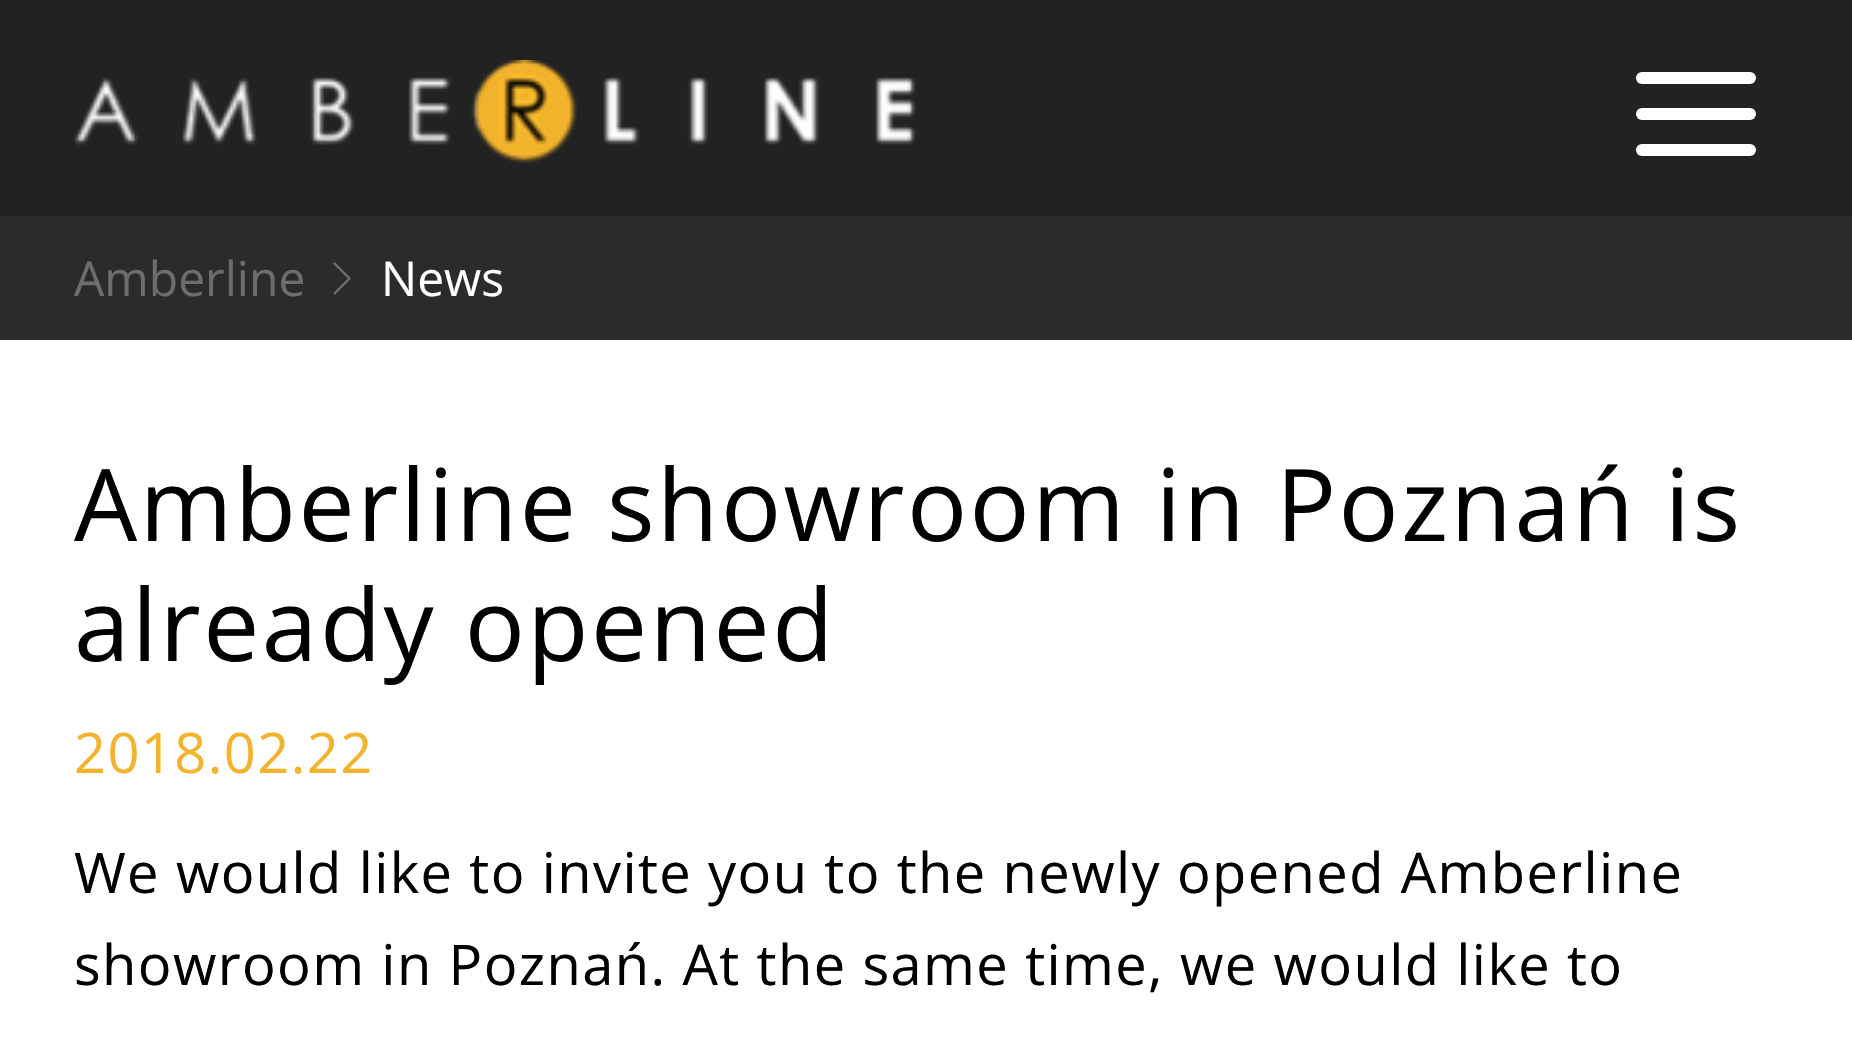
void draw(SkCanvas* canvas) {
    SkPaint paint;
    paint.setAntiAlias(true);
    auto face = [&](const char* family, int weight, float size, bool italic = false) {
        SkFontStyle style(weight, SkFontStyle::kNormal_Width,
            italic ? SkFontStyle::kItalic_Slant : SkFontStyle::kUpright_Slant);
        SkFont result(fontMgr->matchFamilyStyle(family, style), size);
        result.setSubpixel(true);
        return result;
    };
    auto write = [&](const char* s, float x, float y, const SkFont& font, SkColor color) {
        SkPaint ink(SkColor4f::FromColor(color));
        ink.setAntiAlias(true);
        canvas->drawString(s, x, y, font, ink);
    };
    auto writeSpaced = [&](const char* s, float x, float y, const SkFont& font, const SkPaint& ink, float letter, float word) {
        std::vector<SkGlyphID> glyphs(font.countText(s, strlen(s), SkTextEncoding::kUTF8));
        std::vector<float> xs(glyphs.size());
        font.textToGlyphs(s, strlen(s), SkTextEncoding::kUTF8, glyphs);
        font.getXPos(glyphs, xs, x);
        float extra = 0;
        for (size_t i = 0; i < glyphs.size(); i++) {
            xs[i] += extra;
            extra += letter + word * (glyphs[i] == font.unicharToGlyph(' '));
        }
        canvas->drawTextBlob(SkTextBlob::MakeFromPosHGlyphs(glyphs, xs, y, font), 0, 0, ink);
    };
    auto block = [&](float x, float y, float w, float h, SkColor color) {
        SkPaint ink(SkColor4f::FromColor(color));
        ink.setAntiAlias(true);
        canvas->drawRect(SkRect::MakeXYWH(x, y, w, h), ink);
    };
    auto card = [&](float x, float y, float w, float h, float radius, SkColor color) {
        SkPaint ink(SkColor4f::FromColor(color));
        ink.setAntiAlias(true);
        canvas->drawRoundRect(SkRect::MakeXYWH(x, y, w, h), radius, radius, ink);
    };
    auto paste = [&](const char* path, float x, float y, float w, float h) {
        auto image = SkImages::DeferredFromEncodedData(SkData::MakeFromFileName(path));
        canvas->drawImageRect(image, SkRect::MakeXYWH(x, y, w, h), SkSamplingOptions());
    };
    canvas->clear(SK_ColorWHITE);
    block(0, 0, 1852, 216, SkColorSetRGB(34, 34, 34));
    paste("pic1.png", 74, 60, 842, 104);
    card(1636, 108, 120, 12, 6, SK_ColorWHITE);
    card(1636, 72, 120, 12, 6, SK_ColorWHITE);
    card(1636, 144, 120, 12, 6, SK_ColorWHITE);
    block(0, 216, 1852, 124, SkColorSetRGB(43, 43, 43));
    auto kFont1 = face("Open Sans", 400, 48);
    write("Amberline", 74, 296, kFont1, SkColorSetRGB(109, 109, 109));
    paste("pic2.png", 333, 262, 18, 33);
    write("News", 381, 296, kFont1, SK_ColorWHITE);
    auto kFont2 = face("Open Sans", 400, 100);
    paint.setColor(SK_ColorBLACK);
    writeSpaced("Amberline showroom in Poznań is", 74, 541, kFont2, paint, 2.5f, 0);
    writeSpaced("already opened", 74, 661, kFont2, paint, 2.5f, 0);
    auto kFont3 = face("Open Sans", 400, 56);
    paint.setColor(SkColorSetRGB(243, 179, 44));
    writeSpaced("2018.02.22", 74, 773, kFont3, paint, 1.4f, 0);
    paint.setColor(SK_ColorBLACK);
    writeSpaced("We would like to invite you to the newly opened Amberline", 74, 893, kFont3, paint, 1.4f, 0);
    writeSpaced("showroom in Poznań. At the same time, we would like to", 74, 985, kFont3, paint, 1.4f, 0);
}
